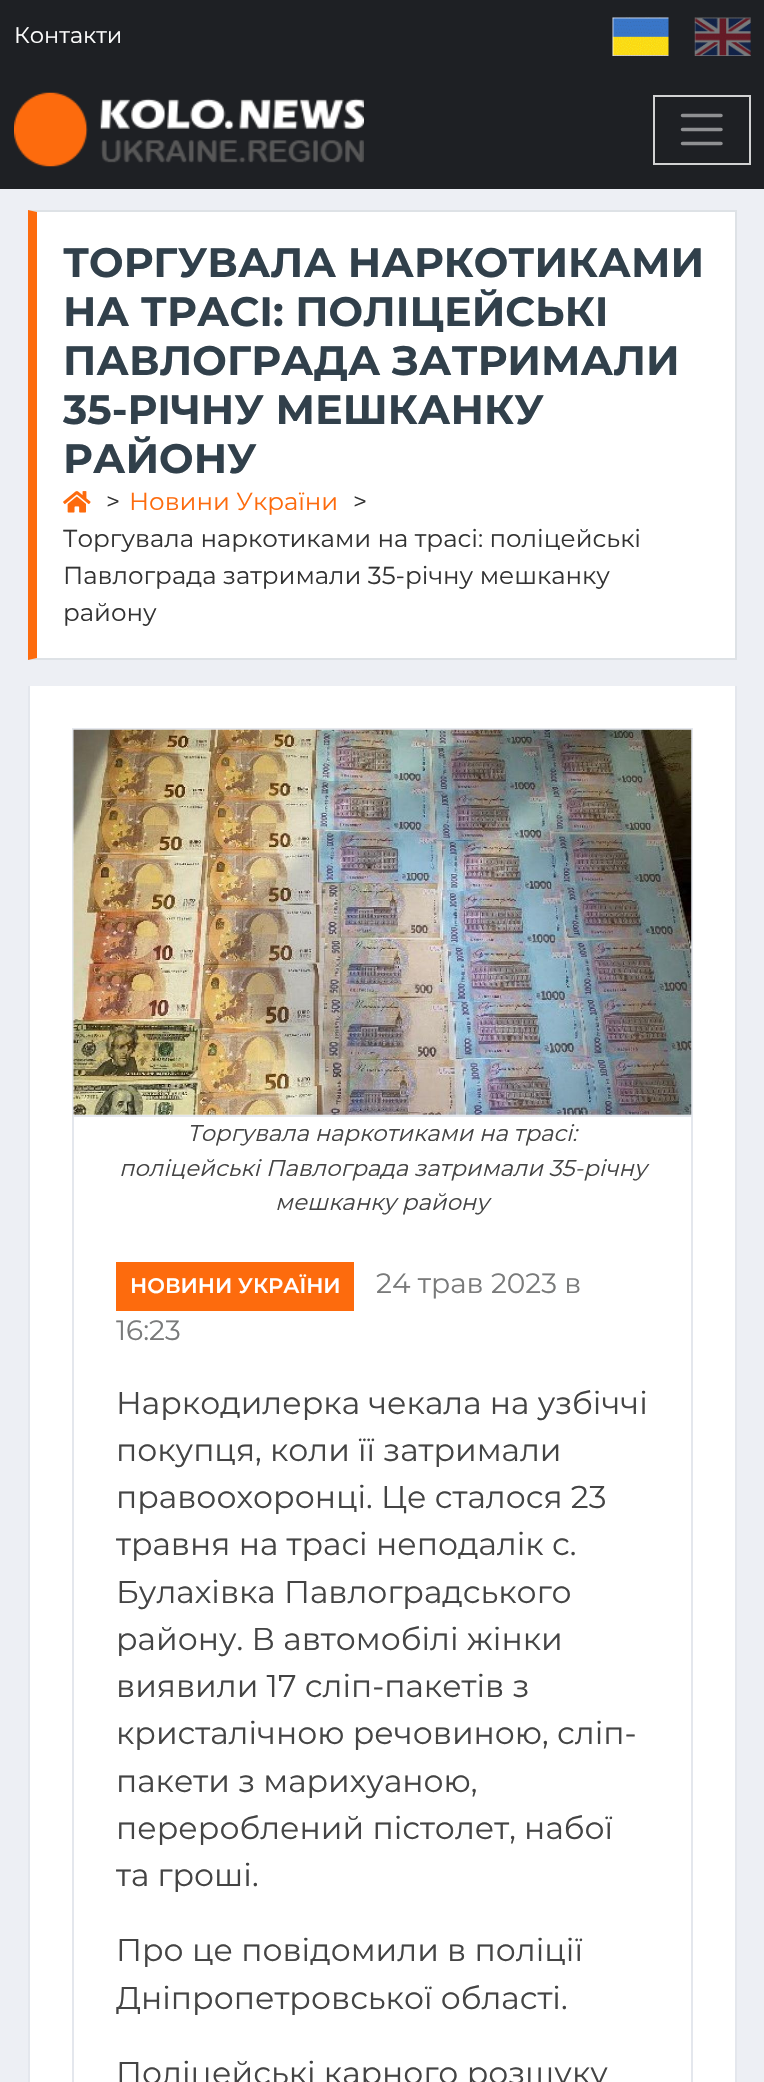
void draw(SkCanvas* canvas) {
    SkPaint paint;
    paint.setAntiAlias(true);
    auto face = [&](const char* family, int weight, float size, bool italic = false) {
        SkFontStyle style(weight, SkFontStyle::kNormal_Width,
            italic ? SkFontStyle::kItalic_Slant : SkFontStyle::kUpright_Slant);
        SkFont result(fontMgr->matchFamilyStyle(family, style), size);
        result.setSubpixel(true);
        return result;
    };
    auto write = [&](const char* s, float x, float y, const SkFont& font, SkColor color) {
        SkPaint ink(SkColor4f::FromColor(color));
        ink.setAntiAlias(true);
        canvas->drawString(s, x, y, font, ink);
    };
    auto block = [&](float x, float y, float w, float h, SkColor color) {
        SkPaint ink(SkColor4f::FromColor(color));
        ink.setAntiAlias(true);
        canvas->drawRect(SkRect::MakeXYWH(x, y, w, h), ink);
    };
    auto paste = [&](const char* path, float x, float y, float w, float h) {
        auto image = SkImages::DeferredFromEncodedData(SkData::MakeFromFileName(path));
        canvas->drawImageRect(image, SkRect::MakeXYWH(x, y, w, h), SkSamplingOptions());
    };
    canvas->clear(SkColorSetRGB(237, 239, 244));
    block(0, 0, 764, 189, SkColorSetRGB(30, 32, 36));
    auto kFont1 = face("Montserrat", 400, 22.5f);
    write("Контакти", 14, 43, kFont1, SK_ColorWHITE);
    paste("pic1.png", 612, 17, 57, 39);
    paste("pic2.png", 694, 17, 57, 39);
    paste("pic3.png", 14, 92, 350, 75);
    paint.setStyle(SkPaint::kStroke_Style);
    paint.setStrokeWidth(2);
    paint.setColor(SkColorSetRGB(210, 210, 211));
    canvas->drawRect(SkRect::MakeXYWH(654, 96, 96, 68), paint);
    paint.setStrokeWidth(3.5f);
    paint.setStrokeCap(SkPaint::kRound_Cap);
    paint.setColor(SkColorSetRGB(143, 144, 146));
    canvas->drawPath(SkPathBuilder().moveTo(682.5f, 115.5f).lineTo(721, 115.5f).moveTo(682.5f, 129.5f).lineTo(721, 129.5f).moveTo(682.5f, 143.5f).lineTo(721, 143.5f).detach(), paint);
    block(37, 212, 698, 446, SK_ColorWHITE);
    paint.setStyle(SkPaint::kFill_Style);
    paint.setColor(SkColorSetRGB(222, 226, 230));
    canvas->drawPath(SkPathBuilder().moveTo(28, 210).lineTo(737, 210).lineTo(735, 212).lineTo(37, 212).close().detach(), paint);
    block(735, 210, 2, 450, SkColorSetRGB(222, 226, 230));
    canvas->drawPath(SkPathBuilder().moveTo(737, 660).lineTo(28, 660).lineTo(37, 658).lineTo(735, 658).close().detach(), paint);
    paint.setColor(SkColorSetRGB(253, 107, 13));
    canvas->drawPath(SkPathBuilder().moveTo(28, 660).lineTo(28, 210).lineTo(37, 212).lineTo(37, 658).close().detach(), paint);
    auto kFont2 = face("Montserrat", 700, 41);
    write("ТОРГУВАЛА НАРКОТИКАМИ", 63, 277, kFont2, SkColorSetRGB(49, 64, 75));
    write("НА ТРАСІ: ПОЛІЦЕЙСЬКІ", 63, 326, kFont2, SkColorSetRGB(49, 64, 75));
    write("ПАВЛОГРАДА ЗАТРИМАЛИ", 63, 375, kFont2, SkColorSetRGB(49, 64, 75));
    write("35-РІЧНУ МЕШКАНКУ", 63, 424, kFont2, SkColorSetRGB(49, 64, 75));
    write("РАЙОНУ", 63, 473, kFont2, SkColorSetRGB(49, 64, 75));
    paste("pic4.png", 63, 491, 28, 22);
    auto kFont3 = face("Montserrat", 400, 24.5f);
    write(">", 106, 510, kFont3, SkColorSetRGB(51, 51, 51));
    write("Новини України", 129, 510, kFont3, SkColorSetRGB(253, 107, 13));
    write(">", 353, 510, kFont3, SkColorSetRGB(51, 51, 51));
    write("Торгувала наркотиками на трасі: поліцейські", 63, 547, kFont3, SkColorSetRGB(51, 51, 51));
    write("Павлограда затримали 35-річну мешканку", 63, 584, kFont3, SkColorSetRGB(51, 51, 51));
    write("району", 63, 621, kFont3, SkColorSetRGB(51, 51, 51));
    block(30, 686, 705, 1396, SK_ColorWHITE);
    block(735, 686, 2, 1396, SkColorSetRGB(228, 231, 237));
    block(28, 686, 2, 1396, SkColorSetRGB(228, 231, 237));
    paint.setStyle(SkPaint::kStroke_Style);
    paint.setStrokeWidth(2);
    paint.setStrokeCap(SkPaint::kButt_Cap);
    paint.setColor(SkColorSetRGB(228, 231, 237));
    canvas->drawRect(SkRect::MakeXYWH(73, 729, 619, 387), paint);
    paste("pic5.png", 73, 729, 619, 386);
    block(691, 1117, 2, 965, SkColorSetRGB(228, 231, 237));
    block(72, 1117, 2, 965, SkColorSetRGB(228, 231, 237));
    auto kFont4 = face("Montserrat", 400, 22.75f, true);
    write("Торгувала наркотиками на трасі:", 187, 1141, kFont4, SkColorSetRGB(68, 68, 68));
    write("поліцейські Павлограда затримали 35-річну", 119, 1176, kFont4, SkColorSetRGB(68, 68, 68));
    write("мешканку району", 275, 1210, kFont4, SkColorSetRGB(68, 68, 68));
    block(116, 1262, 238, 49, SkColorSetRGB(253, 107, 13));
    auto kFont5 = face("Montserrat", 600, 21);
    write("НОВИНИ УКРАЇНИ", 130, 1293, kFont5, SK_ColorWHITE);
    auto kFont6 = face("Montserrat", 400, 28);
    write("24 трав 2023 в", 376, 1293, kFont6, SkColorSetRGB(121, 122, 122));
    write("16:23", 116, 1340, kFont6, SkColorSetRGB(121, 122, 122));
    auto kFont7 = face("Montserrat", 400, 31.5f);
    write("Наркодилерка чекала на узбіччі", 116, 1414, kFont7, SkColorSetRGB(68, 68, 68));
    write("покупця, коли її затримали", 116, 1461, kFont7, SkColorSetRGB(68, 68, 68));
    write("правоохоронці. Це сталося 23", 116, 1508, kFont7, SkColorSetRGB(68, 68, 68));
    write("травня на трасі неподалік с.", 116, 1555, kFont7, SkColorSetRGB(68, 68, 68));
    write("Булахівка Павлоградського", 116, 1603, kFont7, SkColorSetRGB(68, 68, 68));
    write("району. В автомобілі жінки", 116, 1650, kFont7, SkColorSetRGB(68, 68, 68));
    write("виявили 17 сліп-пакетів з", 116, 1697, kFont7, SkColorSetRGB(68, 68, 68));
    write("кристалічною речовиною, сліп-", 116, 1744, kFont7, SkColorSetRGB(68, 68, 68));
    write("пакети з марихуаною,", 116, 1792, kFont7, SkColorSetRGB(68, 68, 68));
    write("перероблений пістолет, набої", 116, 1839, kFont7, SkColorSetRGB(68, 68, 68));
    write("та гроші.", 116, 1886, kFont7, SkColorSetRGB(68, 68, 68));
    write("Про це повідомили в поліції", 116, 1961, kFont7, SkColorSetRGB(68, 68, 68));
    write("Дніпропетровської області.", 116, 2009, kFont7, SkColorSetRGB(68, 68, 68));
    write("Поліцейські карного розшуку", 116, 2084, kFont7, SkColorSetRGB(68, 68, 68));
}
